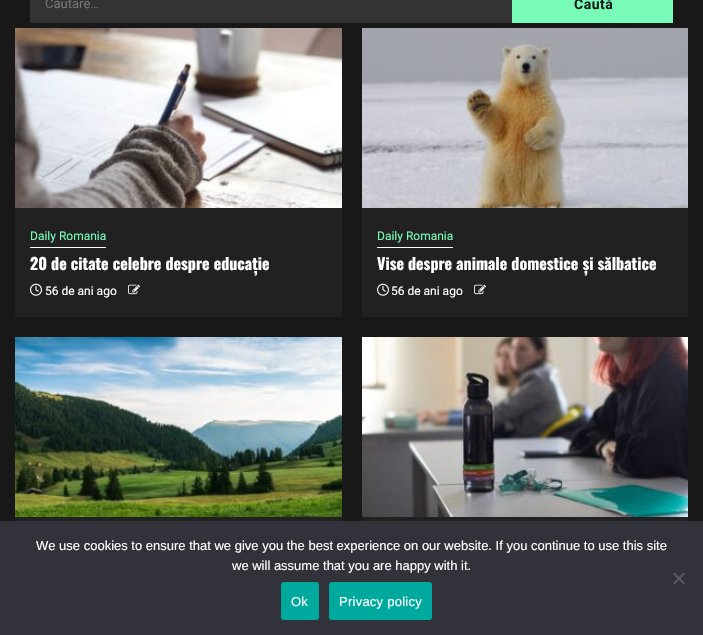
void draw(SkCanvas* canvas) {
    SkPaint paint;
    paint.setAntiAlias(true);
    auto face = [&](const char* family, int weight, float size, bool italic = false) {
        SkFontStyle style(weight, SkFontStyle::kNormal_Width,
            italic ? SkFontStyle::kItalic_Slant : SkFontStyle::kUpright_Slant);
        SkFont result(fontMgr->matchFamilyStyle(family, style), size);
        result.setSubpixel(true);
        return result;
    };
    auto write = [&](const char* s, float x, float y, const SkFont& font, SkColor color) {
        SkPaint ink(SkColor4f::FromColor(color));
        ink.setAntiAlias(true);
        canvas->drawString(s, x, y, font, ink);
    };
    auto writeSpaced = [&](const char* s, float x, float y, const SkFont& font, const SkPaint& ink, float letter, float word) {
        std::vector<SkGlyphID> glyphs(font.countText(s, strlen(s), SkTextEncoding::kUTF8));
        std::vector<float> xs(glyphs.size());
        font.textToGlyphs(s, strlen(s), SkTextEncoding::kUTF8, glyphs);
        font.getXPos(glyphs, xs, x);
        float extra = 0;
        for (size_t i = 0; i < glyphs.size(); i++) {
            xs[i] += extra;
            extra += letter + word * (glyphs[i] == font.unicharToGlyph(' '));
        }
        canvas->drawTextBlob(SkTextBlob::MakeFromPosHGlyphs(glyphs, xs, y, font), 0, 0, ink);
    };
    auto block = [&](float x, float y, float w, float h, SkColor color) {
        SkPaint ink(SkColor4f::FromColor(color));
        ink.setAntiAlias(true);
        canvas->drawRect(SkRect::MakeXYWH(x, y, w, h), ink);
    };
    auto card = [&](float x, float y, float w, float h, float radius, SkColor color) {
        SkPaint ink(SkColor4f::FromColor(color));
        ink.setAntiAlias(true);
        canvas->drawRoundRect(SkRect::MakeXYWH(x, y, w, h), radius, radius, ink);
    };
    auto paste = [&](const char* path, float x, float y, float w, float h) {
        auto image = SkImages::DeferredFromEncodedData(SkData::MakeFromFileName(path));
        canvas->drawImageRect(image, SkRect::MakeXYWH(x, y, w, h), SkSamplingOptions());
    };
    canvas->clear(SkColorSetRGB(24, 24, 24));
    block(30, 0, 482, 23, SkColorSetRGB(51, 51, 51));
    auto kFont1 = face("Roboto", 400, 13);
    write("Căutare…", 45, 8, kFont1, SkColorSetRGB(117, 117, 117));
    block(512, 0, 161, 23, SkColorSetRGB(120, 251, 183));
    auto kFont2 = face("Roboto", 700, 14);
    paint.setColor(SkColorSetRGB(28, 28, 28));
    writeSpaced("Caută", 574, 9, kFont2, paint, 0.5f, 0);
    block(15, 208, 327, 109, SkColorSetRGB(33, 33, 33));
    paste("pic1.png", 15, 28, 327, 180);
    block(30, 247, 76, 1, SK_ColorWHITE);
    auto kFont3 = face("Roboto", 400, 12);
    write("Daily Romania", 30, 240, kFont3, SkColorSetRGB(120, 251, 183));
    auto kFont4 = face("Oswald", 700, 16);
    write("20 de citate celebre despre educație", 30, 270, kFont4, SK_ColorWHITE);
    paste("pic2.png", 30, 283, 12, 13);
    write("56 de ani ago", 45, 295, kFont3, SK_ColorWHITE);
    paste("pic3.png", 128, 284, 12, 11);
    block(362, 208, 326, 109, SkColorSetRGB(33, 33, 33));
    paste("pic4.png", 362, 28, 326, 180);
    block(377, 247, 76, 1, SK_ColorWHITE);
    write("Daily Romania", 377, 240, kFont3, SkColorSetRGB(120, 251, 183));
    write("Vise despre animale domestice și sălbatice", 377, 270, kFont4, SK_ColorWHITE);
    paste("pic2.png", 377, 283, 12, 13);
    write("56 de ani ago", 391, 295, kFont3, SK_ColorWHITE);
    paste("pic3.png", 474, 284, 12, 11);
    block(15, 517, 327, 4, SkColorSetRGB(33, 33, 33));
    paste("pic5.png", 15, 337, 327, 180);
    block(362, 517, 326, 4, SkColorSetRGB(33, 33, 33));
    paste("pic6.png", 362, 337, 326, 180);
    block(0, 521, 703, 114, SkColorSetRGB(50, 50, 58));
    auto kFont5 = face("Liberation Sans", 400, 13);
    write("We use cookies to ensure that we give you the best experience on our website. If you continue to use this site", 36, 550, kFont5, SK_ColorWHITE);
    write("we will assume that you are happy with it.", 232, 570, kFont5, SK_ColorWHITE);
    paint.setColor(SkColorSetRGB(89, 89, 93));
    canvas->drawPath(SkPathBuilder().moveTo(683.5f, 572.5f).lineTo(685, 574).lineTo(674.5f, 584.5f).lineTo(673, 583).close().detach(), paint);
    canvas->drawPath(SkPathBuilder().moveTo(673, 574).lineTo(674.5f, 572.5f).lineTo(685, 583).lineTo(683.5f, 584.5f).close().detach(), paint);
    card(281, 582, 38, 38, 3, SkColorSetRGB(0, 169, 157));
    paint.setColor(SK_ColorWHITE);
    writeSpaced("Ok", 291, 606, kFont5, paint, 0.25f, 0);
    card(329, 582, 103, 38, 3, SkColorSetRGB(0, 169, 157));
    writeSpaced("Privacy policy", 339, 606, kFont5, paint, 0.25f, 0);
}
